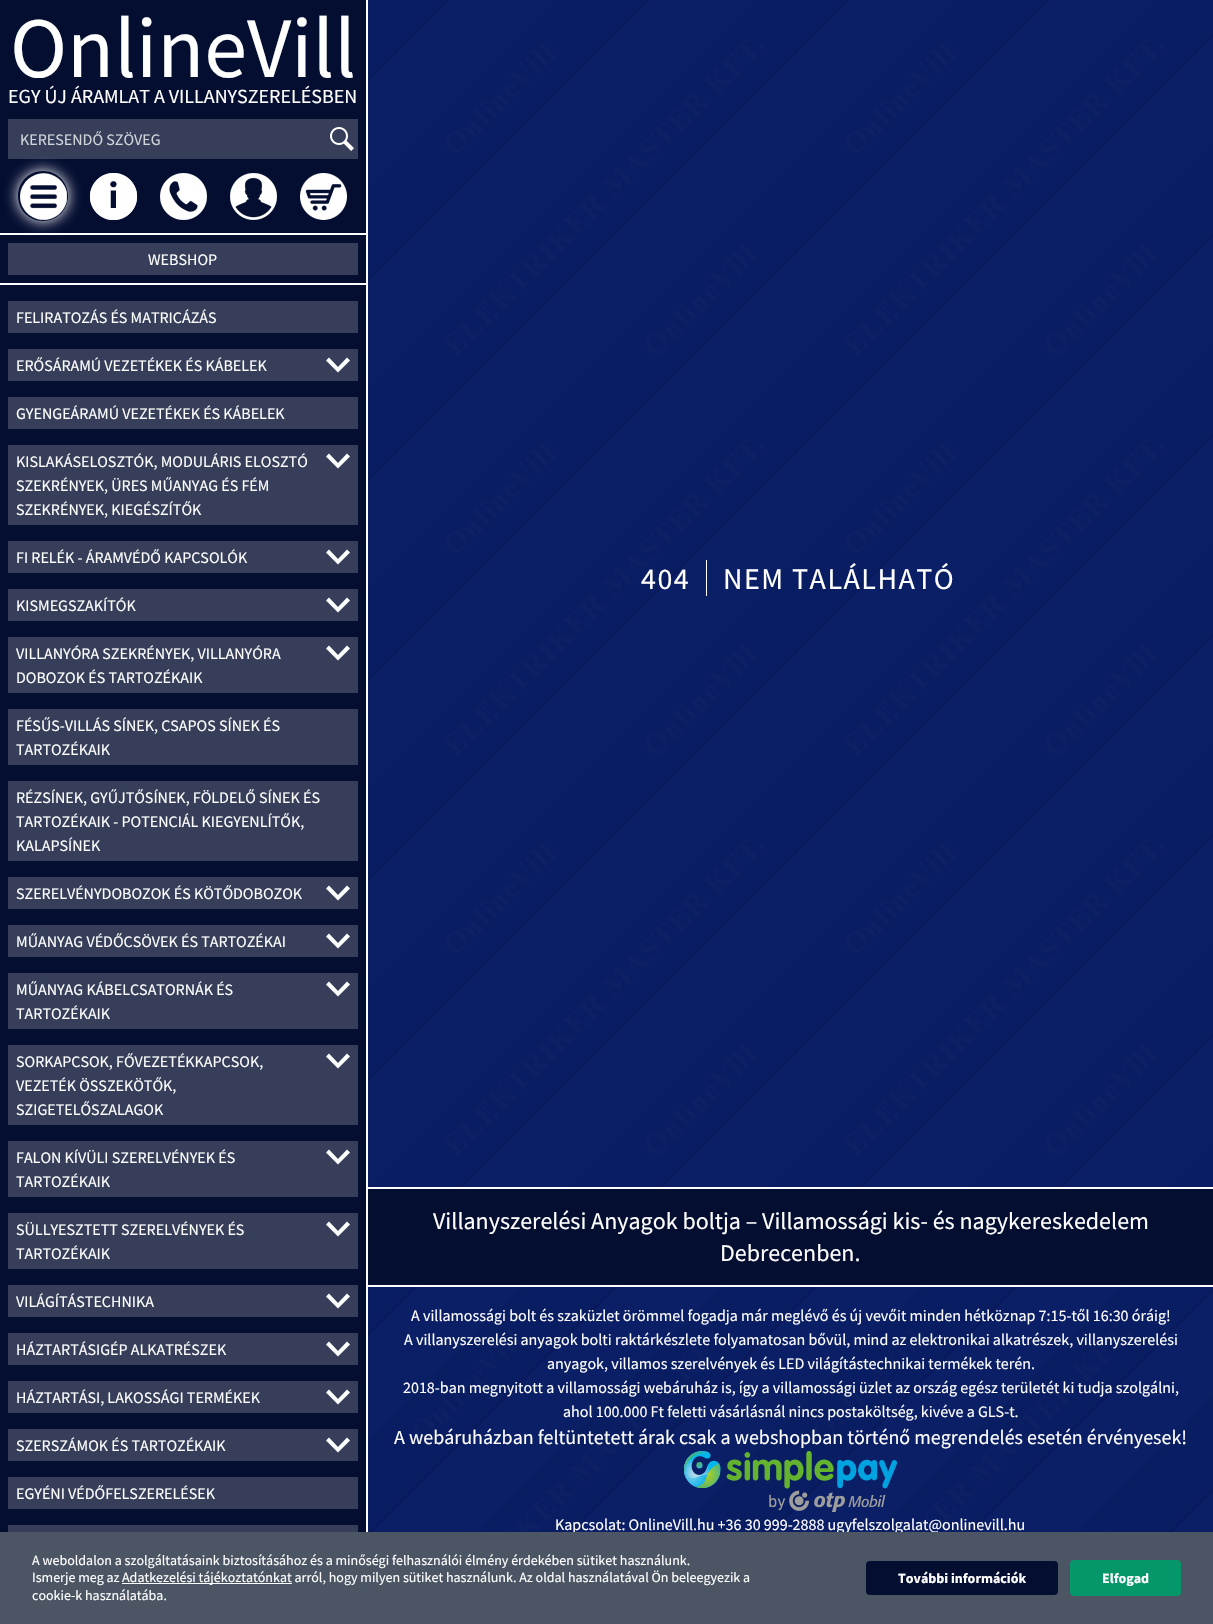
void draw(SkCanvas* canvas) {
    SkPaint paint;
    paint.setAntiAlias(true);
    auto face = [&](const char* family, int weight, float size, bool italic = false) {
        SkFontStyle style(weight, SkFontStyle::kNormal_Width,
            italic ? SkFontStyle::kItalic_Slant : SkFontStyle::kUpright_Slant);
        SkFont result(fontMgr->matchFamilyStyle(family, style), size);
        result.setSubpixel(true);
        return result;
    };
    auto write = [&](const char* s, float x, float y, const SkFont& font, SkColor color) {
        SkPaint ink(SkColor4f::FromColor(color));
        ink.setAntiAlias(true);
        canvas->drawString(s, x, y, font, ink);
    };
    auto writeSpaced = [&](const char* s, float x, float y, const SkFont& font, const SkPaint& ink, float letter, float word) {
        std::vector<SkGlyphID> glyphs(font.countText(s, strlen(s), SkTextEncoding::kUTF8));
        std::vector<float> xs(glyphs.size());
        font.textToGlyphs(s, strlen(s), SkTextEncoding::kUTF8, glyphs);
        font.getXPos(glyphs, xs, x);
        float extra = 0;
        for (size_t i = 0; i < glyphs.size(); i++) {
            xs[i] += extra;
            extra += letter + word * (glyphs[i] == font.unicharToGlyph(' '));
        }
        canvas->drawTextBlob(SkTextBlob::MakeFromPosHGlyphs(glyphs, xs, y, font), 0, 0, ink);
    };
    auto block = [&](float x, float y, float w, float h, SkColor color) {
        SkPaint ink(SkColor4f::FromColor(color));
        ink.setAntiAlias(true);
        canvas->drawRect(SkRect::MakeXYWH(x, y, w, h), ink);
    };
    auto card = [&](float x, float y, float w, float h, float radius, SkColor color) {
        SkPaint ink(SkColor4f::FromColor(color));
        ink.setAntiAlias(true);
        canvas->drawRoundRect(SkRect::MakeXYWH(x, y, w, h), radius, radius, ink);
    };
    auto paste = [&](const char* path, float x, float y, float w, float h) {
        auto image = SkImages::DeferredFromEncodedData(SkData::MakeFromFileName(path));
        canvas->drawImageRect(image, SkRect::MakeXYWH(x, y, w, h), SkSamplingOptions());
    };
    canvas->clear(SK_ColorWHITE);
    paste("pic1.png", 368, 0, 845, 1187);
    block(0, 0, 366, 1532, SkColorSetRGB(4, 14, 49));
    block(0, 233, 366, 2, SK_ColorWHITE);
    auto kFont1 = face("Source Sans Pro", 400, 86);
    write("OnlineVill", 10, 77, kFont1, SK_ColorWHITE);
    auto kFont2 = face("Source Sans Pro", 400, 20);
    write("EGY ÚJ ÁRAMLAT A VILLANYSZERELÉSBEN", 8, 103, kFont2, SK_ColorWHITE);
    block(8, 119, 350, 40, SkColorSetRGB(54, 62, 90));
    auto kFont3 = face("Source Sans Pro", 400, 16);
    write("KERESENDŐ SZÖVEG", 20, 145, kFont3, SkColorSetRGB(209, 213, 219));
    paste("pic2.png", 330, 127, 24, 24);
    canvas->save();
    canvas->clipPath(SkPathBuilder(SkPathFillType::kEvenOdd).moveTo(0, 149).lineTo(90, 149).lineTo(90, 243).lineTo(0, 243).close().moveTo(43, 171).cubicTo(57, 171, 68, 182, 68, 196).cubicTo(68, 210, 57, 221, 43, 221).cubicTo(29, 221, 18, 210, 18, 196).cubicTo(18, 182, 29, 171, 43, 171).close().detach(), true);
    paint.setColor(SK_ColorWHITE);
    paint.setMaskFilter(SkMaskFilter::MakeBlur(kNormal_SkBlurStyle, 7));
    canvas->drawRoundRect(SkRect::MakeXYWH(18, 171, 50, 50), 25, 25, paint);
    paint.setMaskFilter(nullptr);
    canvas->restore();
    paste("pic3.png", 20, 173, 47, 47);
    paste("pic4.png", 90, 173, 47, 47);
    paste("pic5.png", 160, 173, 47, 47);
    paste("pic6.png", 230, 173, 47, 47);
    paste("pic7.png", 300, 173, 47, 47);
    block(0, 283, 366, 2, SK_ColorWHITE);
    block(8, 243, 350, 32, SkColorSetRGB(54, 62, 90));
    write("WEBSHOP", 148, 265, kFont3, SK_ColorWHITE);
    block(8, 301, 350, 32, SkColorSetRGB(54, 62, 90));
    write("FELIRATOZÁS ÉS MATRICÁZÁS", 16, 323, kFont3, SK_ColorWHITE);
    block(8, 349, 350, 32, SkColorSetRGB(54, 62, 90));
    write("ERŐSÁRAMÚ VEZETÉKEK ÉS KÁBELEK", 16, 371, kFont3, SK_ColorWHITE);
    canvas->drawPath(SkPathBuilder().moveTo(326, 360.5f).lineTo(329, 357.5f).lineTo(338, 367).lineTo(347, 357.5f).lineTo(350, 360.5f).lineTo(338, 372.5f).close().detach(), paint);
    block(8, 397, 350, 32, SkColorSetRGB(54, 62, 90));
    write("GYENGEÁRAMÚ VEZETÉKEK ÉS KÁBELEK", 16, 419, kFont3, SK_ColorWHITE);
    block(8, 445, 350, 80, SkColorSetRGB(54, 62, 90));
    write("KISLAKÁSELOSZTÓK, MODULÁRIS ELOSZTÓ", 16, 467, kFont3, SK_ColorWHITE);
    write("SZEKRÉNYEK, ÜRES MŰANYAG ÉS FÉM", 16, 491, kFont3, SK_ColorWHITE);
    write("SZEKRÉNYEK, KIEGÉSZÍTŐK", 16, 515, kFont3, SK_ColorWHITE);
    canvas->drawPath(SkPathBuilder().moveTo(326, 456.5f).lineTo(329, 453.5f).lineTo(338, 463).lineTo(347, 453.5f).lineTo(350, 456.5f).lineTo(338, 468.5f).close().detach(), paint);
    block(8, 541, 350, 32, SkColorSetRGB(54, 62, 90));
    write("FI RELÉK - ÁRAMVÉDŐ KAPCSOLÓK", 16, 563, kFont3, SK_ColorWHITE);
    canvas->drawPath(SkPathBuilder().moveTo(326, 552.5f).lineTo(329, 549.5f).lineTo(338, 559).lineTo(347, 549.5f).lineTo(350, 552.5f).lineTo(338, 564.5f).close().detach(), paint);
    block(8, 589, 350, 32, SkColorSetRGB(54, 62, 90));
    write("KISMEGSZAKÍTÓK", 16, 611, kFont3, SK_ColorWHITE);
    canvas->drawPath(SkPathBuilder().moveTo(326, 600.5f).lineTo(329, 597.5f).lineTo(338, 607).lineTo(347, 597.5f).lineTo(350, 600.5f).lineTo(338, 612.5f).close().detach(), paint);
    block(8, 637, 350, 56, SkColorSetRGB(54, 62, 90));
    write("VILLANYÓRA SZEKRÉNYEK, VILLANYÓRA", 16, 659, kFont3, SK_ColorWHITE);
    write("DOBOZOK ÉS TARTOZÉKAIK", 16, 683, kFont3, SK_ColorWHITE);
    canvas->drawPath(SkPathBuilder().moveTo(326, 648.5f).lineTo(329, 645.5f).lineTo(338, 655).lineTo(347, 645.5f).lineTo(350, 648.5f).lineTo(338, 660.5f).close().detach(), paint);
    block(8, 709, 350, 56, SkColorSetRGB(54, 62, 90));
    write("FÉSŰS-VILLÁS SÍNEK, CSAPOS SÍNEK ÉS", 16, 731, kFont3, SK_ColorWHITE);
    write("TARTOZÉKAIK", 16, 755, kFont3, SK_ColorWHITE);
    block(8, 781, 350, 80, SkColorSetRGB(54, 62, 90));
    write("RÉZSÍNEK, GYŰJTŐSÍNEK, FÖLDELŐ SÍNEK ÉS", 16, 803, kFont3, SK_ColorWHITE);
    write("TARTOZÉKAIK - POTENCIÁL KIEGYENLÍTŐK,", 16, 827, kFont3, SK_ColorWHITE);
    write("KALAPSÍNEK", 16, 851, kFont3, SK_ColorWHITE);
    block(8, 877, 350, 32, SkColorSetRGB(54, 62, 90));
    write("SZERELVÉNYDOBOZOK ÉS KÖTŐDOBOZOK", 16, 899, kFont3, SK_ColorWHITE);
    canvas->drawPath(SkPathBuilder().moveTo(326, 888.5f).lineTo(329, 885.5f).lineTo(338, 895).lineTo(347, 885.5f).lineTo(350, 888.5f).lineTo(338, 900.5f).close().detach(), paint);
    block(8, 925, 350, 32, SkColorSetRGB(54, 62, 90));
    write("MŰANYAG VÉDŐCSÖVEK ÉS TARTOZÉKAI", 16, 947, kFont3, SK_ColorWHITE);
    canvas->drawPath(SkPathBuilder().moveTo(326, 936.5f).lineTo(329, 933.5f).lineTo(338, 943).lineTo(347, 933.5f).lineTo(350, 936.5f).lineTo(338, 948.5f).close().detach(), paint);
    block(8, 973, 350, 56, SkColorSetRGB(54, 62, 90));
    write("MŰANYAG KÁBELCSATORNÁK ÉS", 16, 995, kFont3, SK_ColorWHITE);
    write("TARTOZÉKAIK", 16, 1019, kFont3, SK_ColorWHITE);
    canvas->drawPath(SkPathBuilder().moveTo(326, 984.5f).lineTo(329, 981.5f).lineTo(338, 991).lineTo(347, 981.5f).lineTo(350, 984.5f).lineTo(338, 996.5f).close().detach(), paint);
    block(8, 1045, 350, 80, SkColorSetRGB(54, 62, 90));
    write("SORKAPCSOK, FŐVEZETÉKKAPCSOK,", 16, 1067, kFont3, SK_ColorWHITE);
    write("VEZETÉK ÖSSZEKÖTŐK,", 16, 1091, kFont3, SK_ColorWHITE);
    write("SZIGETELŐSZALAGOK", 16, 1115, kFont3, SK_ColorWHITE);
    canvas->drawPath(SkPathBuilder().moveTo(326, 1056.5f).lineTo(329, 1053.5f).lineTo(338, 1063).lineTo(347, 1053.5f).lineTo(350, 1056.5f).lineTo(338, 1068.5f).close().detach(), paint);
    block(8, 1141, 350, 56, SkColorSetRGB(54, 62, 90));
    write("FALON KÍVÜLI SZERELVÉNYEK ÉS", 16, 1163, kFont3, SK_ColorWHITE);
    write("TARTOZÉKAIK", 16, 1187, kFont3, SK_ColorWHITE);
    canvas->drawPath(SkPathBuilder().moveTo(326, 1152.5f).lineTo(329, 1149.5f).lineTo(338, 1159).lineTo(347, 1149.5f).lineTo(350, 1152.5f).lineTo(338, 1164.5f).close().detach(), paint);
    block(8, 1213, 350, 56, SkColorSetRGB(54, 62, 90));
    write("SÜLLYESZTETT SZERELVÉNYEK ÉS", 16, 1235, kFont3, SK_ColorWHITE);
    write("TARTOZÉKAIK", 16, 1259, kFont3, SK_ColorWHITE);
    canvas->drawPath(SkPathBuilder().moveTo(326, 1224.5f).lineTo(329, 1221.5f).lineTo(338, 1231).lineTo(347, 1221.5f).lineTo(350, 1224.5f).lineTo(338, 1236.5f).close().detach(), paint);
    block(8, 1285, 350, 32, SkColorSetRGB(54, 62, 90));
    write("VILÁGÍTÁSTECHNIKA", 16, 1307, kFont3, SK_ColorWHITE);
    canvas->drawPath(SkPathBuilder().moveTo(326, 1296.5f).lineTo(329, 1293.5f).lineTo(338, 1303).lineTo(347, 1293.5f).lineTo(350, 1296.5f).lineTo(338, 1308.5f).close().detach(), paint);
    block(8, 1333, 350, 32, SkColorSetRGB(54, 62, 90));
    write("HÁZTARTÁSIGÉP ALKATRÉSZEK", 16, 1355, kFont3, SK_ColorWHITE);
    canvas->drawPath(SkPathBuilder().moveTo(326, 1344.5f).lineTo(329, 1341.5f).lineTo(338, 1351).lineTo(347, 1341.5f).lineTo(350, 1344.5f).lineTo(338, 1356.5f).close().detach(), paint);
    block(8, 1381, 350, 32, SkColorSetRGB(54, 62, 90));
    write("HÁZTARTÁSI, LAKOSSÁGI TERMÉKEK", 16, 1403, kFont3, SK_ColorWHITE);
    canvas->drawPath(SkPathBuilder().moveTo(326, 1392.5f).lineTo(329, 1389.5f).lineTo(338, 1399).lineTo(347, 1389.5f).lineTo(350, 1392.5f).lineTo(338, 1404.5f).close().detach(), paint);
    block(8, 1429, 350, 32, SkColorSetRGB(54, 62, 90));
    write("SZERSZÁMOK ÉS TARTOZÉKAIK", 16, 1451, kFont3, SK_ColorWHITE);
    canvas->drawPath(SkPathBuilder().moveTo(326, 1440.5f).lineTo(329, 1437.5f).lineTo(338, 1447).lineTo(347, 1437.5f).lineTo(350, 1440.5f).lineTo(338, 1452.5f).close().detach(), paint);
    block(8, 1477, 350, 32, SkColorSetRGB(54, 62, 90));
    write("EGYÉNI VÉDŐFELSZERELÉSEK", 16, 1499, kFont3, SK_ColorWHITE);
    block(8, 1525, 350, 7, SkColorSetRGB(54, 62, 90));
    block(706, 560, 1, 36, SK_ColorWHITE);
    auto kFont4 = face("Source Sans Pro", 400, 30);
    writeSpaced("404", 641, 589, kFont4, paint, 1.5f, 0);
    writeSpaced("NEM TALÁLHATÓ", 723, 589, kFont4, paint, 1.5f, 0);
    block(368, 1189, 845, 96, SkColorSetRGB(4, 14, 49));
    auto kFont5 = face("Source Sans Pro", 400, 24);
    write("Villanyszerelési Anyagok boltja – Villamossági kis- és nagykereskedelem", 433, 1229, kFont5, SK_ColorWHITE);
    write("Debrecenben.", 720, 1261, kFont5, SK_ColorWHITE);
    paste("pic8.png", 368, 1287, 845, 245);
    write("A villamossági bolt és szaküzlet örömmel fogadja már meglévő és új vevőit minden hétköznap 7:15-től 16:30 óráig!", 411, 1321, kFont3, SK_ColorWHITE);
    write("A villanyszerelési anyagok bolti raktárkészlete folyamatosan bővül, mind az elektronikai alkatrészek, villanyszerelési", 404, 1345, kFont3, SK_ColorWHITE);
    write("anyagok, villamos szerelvények és LED világítástechnikai termékek terén.", 547, 1369, kFont3, SK_ColorWHITE);
    write("2018-ban megnyitott a villamossági webáruház is, így a villamossági üzlet az ország egész területét ki tudja szolgálni,", 403, 1393, kFont3, SK_ColorWHITE);
    write("ahol 100.000 Ft feletti vásárlásnál nincs postaköltség, kivéve a GLS-t.", 563, 1417, kFont3, SK_ColorWHITE);
    write("A webáruházban feltüntetett árak csak a webshopban történő megrendelés esetén érvényesek!", 394, 1444, kFont2, SK_ColorWHITE);
    paste("pic9.png", 684, 1451, 213, 61);
    write("Kapcsolat: OnlineVill.hu +36 30 999-2888 ugyfelszolgalat@onlinevill.hu", 555, 1530, kFont3, SK_ColorWHITE);
    block(0, 1532, 1213, 92, SkColorSetRGB(75, 85, 99));
    auto kFont6 = face("Source Sans Pro", 400, 14);
    write("A weboldalon a szolgáltatásaink biztosításához és a minőségi felhasználói élmény érdekében sütiket használunk.", 32, 1565, kFont6, SK_ColorWHITE);
    write("Ismerje meg az", 32, 1582, kFont6, SK_ColorWHITE);
    block(122, 1583, 170, 1, SK_ColorWHITE);
    write("Adatkezelési tájékoztatónkat arról, hogy milyen sütiket használunk. Az oldal használatával Ön beleegyezik a", 122, 1582, kFont6, SK_ColorWHITE);
    write("cookie-k használatába.", 32, 1600, kFont6, SK_ColorWHITE);
    card(866, 1561, 192, 34, 4, SkColorSetRGB(4, 14, 49));
    auto kFont7 = face("Source Sans Pro", 700, 14);
    write("További információk", 898, 1583, kFont7, SK_ColorWHITE);
    card(1070, 1560, 111, 36, 4, SkColorSetRGB(5, 150, 105));
    write("Elfogad", 1102, 1583, kFont7, SK_ColorWHITE);
}
